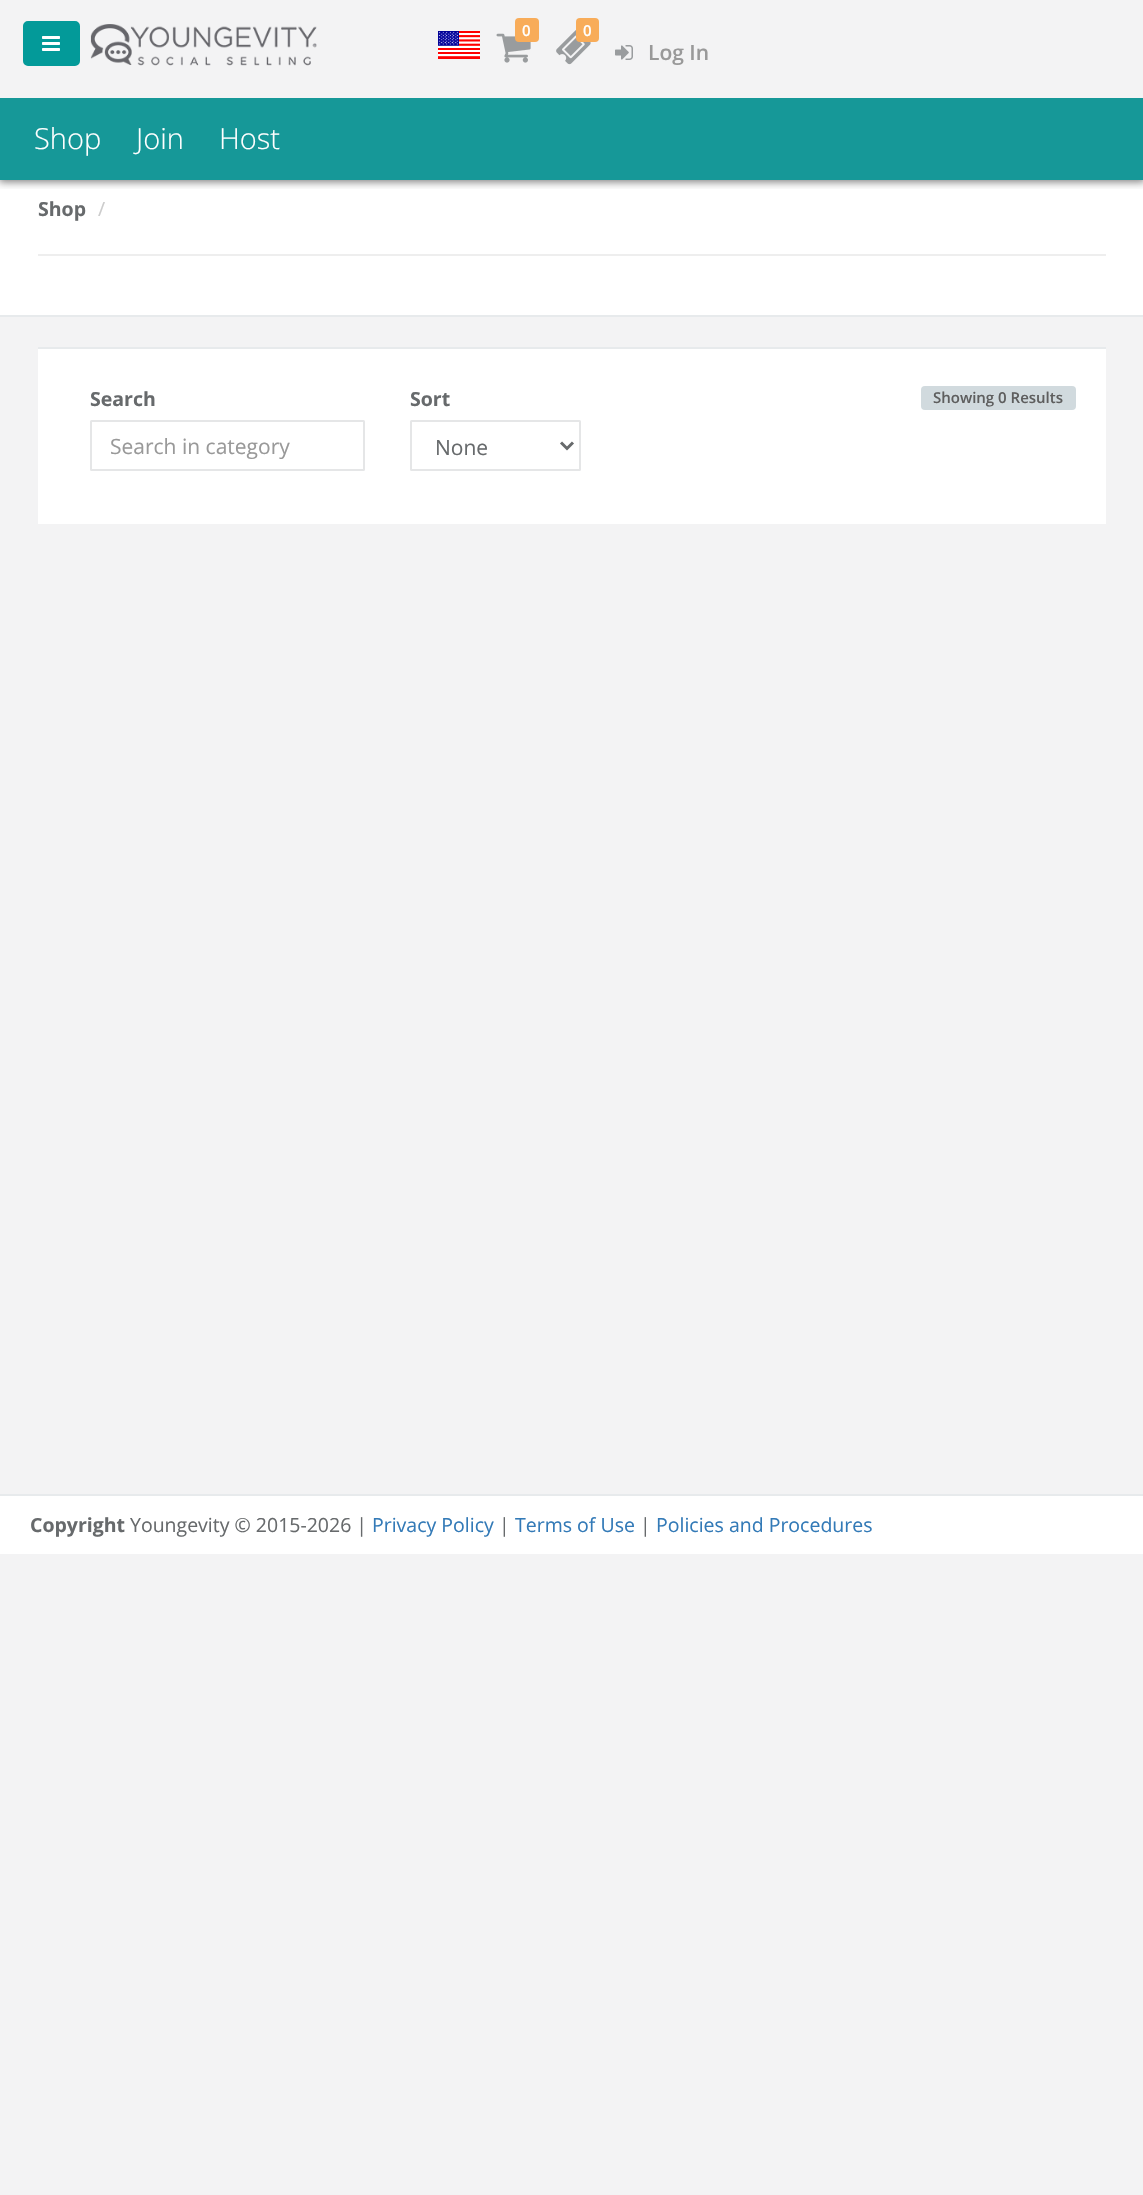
void draw(SkCanvas* canvas) {
    SkPaint paint;
    paint.setAntiAlias(true);
    auto face = [&](const char* family, int weight, float size, bool italic = false) {
        SkFontStyle style(weight, SkFontStyle::kNormal_Width,
            italic ? SkFontStyle::kItalic_Slant : SkFontStyle::kUpright_Slant);
        SkFont result(fontMgr->matchFamilyStyle(family, style), size);
        result.setSubpixel(true);
        return result;
    };
    auto write = [&](const char* s, float x, float y, const SkFont& font, SkColor color) {
        SkPaint ink(SkColor4f::FromColor(color));
        ink.setAntiAlias(true);
        canvas->drawString(s, x, y, font, ink);
    };
    auto block = [&](float x, float y, float w, float h, SkColor color) {
        SkPaint ink(SkColor4f::FromColor(color));
        ink.setAntiAlias(true);
        canvas->drawRect(SkRect::MakeXYWH(x, y, w, h), ink);
    };
    auto card = [&](float x, float y, float w, float h, float radius, SkColor color) {
        SkPaint ink(SkColor4f::FromColor(color));
        ink.setAntiAlias(true);
        canvas->drawRoundRect(SkRect::MakeXYWH(x, y, w, h), radius, radius, ink);
    };
    auto paste = [&](const char* path, float x, float y, float w, float h) {
        auto image = SkImages::DeferredFromEncodedData(SkData::MakeFromFileName(path));
        canvas->drawImageRect(image, SkRect::MakeXYWH(x, y, w, h), SkSamplingOptions());
    };
    canvas->clear(SkColorSetRGB(243, 243, 244));
    block(0, 180, 1143, 135, SK_ColorWHITE);
    canvas->save();
    canvas->clipRect(SkRect::MakeXYWH(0, 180, 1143, 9));
    paint.setColor(SkColorSetARGB(128, 0, 0, 0));
    paint.setMaskFilter(SkMaskFilter::MakeBlur(kNormal_SkBlurStyle, 4));
    canvas->drawRect(SkRect::MakeXYWH(-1, -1, 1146, 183), paint);
    paint.setMaskFilter(nullptr);
    canvas->restore();
    paint.setColor(SkColorSetRGB(3, 154, 153));
    canvas->drawRoundRect(SkRect::MakeXYWH(24, 22, 55, 43), 4, 4, paint);
    paint.setStyle(SkPaint::kStroke_Style);
    paint.setStrokeWidth(2);
    canvas->drawRoundRect(SkRect::MakeXYWH(24, 22, 55, 43), 4, 4, paint);
    paste("pic1.png", 42, 36, 18, 15);
    paste("pic2.png", 90, 24, 227, 42);
    paste("pic3.png", 438, 31, 42, 28);
    paste("pic4.png", 496, 33, 35, 30);
    card(515, 18, 24, 24, 4, SkColorSetRGB(248, 172, 89));
    auto kFont1 = face("Open Sans", 600, 15);
    write("0", 522, 36, kFont1, SK_ColorWHITE);
    paste("pic5.png", 556, 30, 35, 35);
    card(576, 18, 23, 24, 4, SkColorSetRGB(248, 172, 89));
    write("0", 583, 36, kFont1, SK_ColorWHITE);
    paste("pic6.png", 615, 45, 18, 15);
    auto kFont2 = face("Open Sans", 600, 21);
    write("Log In", 648, 60, kFont2, SkColorSetRGB(153, 153, 153));
    block(0, 98, 1143, 82, SkColorSetRGB(22, 152, 152));
    auto kFont3 = face("Open Sans", 300, 29);
    write("Shop", 34, 149, kFont3, SK_ColorWHITE);
    write("Join", 136, 149, kFont3, SK_ColorWHITE);
    write("Host", 219, 149, kFont3, SK_ColorWHITE);
    block(0, 315, 1143, 2, SkColorSetRGB(231, 234, 236));
    auto kFont4 = face("Open Sans", 700, 19.5f);
    write("Shop", 38, 216, kFont4, SkColorSetRGB(103, 106, 108));
    auto kFont5 = face("Open Sans", 400, 19.5f);
    write("/", 98, 216, kFont5, SkColorSetRGB(204, 204, 204));
    block(38, 254, 1068, 2, SkColorSetRGB(238, 238, 238));
    block(38, 349, 1068, 175, SK_ColorWHITE);
    block(38, 347, 1068, 2, SkColorSetRGB(231, 234, 236));
    write("Search", 90, 406, kFont4, SkColorSetRGB(103, 106, 108));
    paint.setColor(SkColorSetRGB(229, 230, 231));
    canvas->drawRoundRect(SkRect::MakeXYWH(91, 421, 273, 49), 0.5f, 0.5f, paint);
    auto kFont6 = face("Open Sans", 400, 21);
    write("Search in category", 110, 454, kFont6, SkColorSetRGB(153, 153, 153));
    write("Sort", 410, 406, kFont4, SkColorSetRGB(103, 106, 108));
    canvas->drawRoundRect(SkRect::MakeXYWH(411, 421, 169, 49), 0.5f, 0.5f, paint);
    paint.setStrokeWidth(3);
    paint.setColor(SkColorSetRGB(103, 106, 108));
    canvas->drawPath(SkPathBuilder().moveTo(561, 442.5f).lineTo(567, 448.5f).lineTo(573, 442.5f).detach(), paint);
    write("None", 435, 455, kFont6, SkColorSetRGB(103, 106, 108));
    card(921, 386, 155, 24, 4, SkColorSetRGB(209, 218, 222));
    write("Showing 0 Results", 933, 403, kFont1, SkColorSetRGB(94, 94, 94));
    block(0, 1496, 1143, 58, SK_ColorWHITE);
    block(0, 1494, 1143, 2, SkColorSetRGB(231, 234, 236));
    write("Copyright", 30, 1532, kFont4, SkColorSetRGB(103, 106, 108));
    write("Youngevity © 2015-2026 |", 130, 1532, kFont5, SkColorSetRGB(103, 106, 108));
    write("Privacy Policy", 372, 1532, kFont5, SkColorSetRGB(51, 122, 183));
    write("|", 499, 1532, kFont5, SkColorSetRGB(103, 106, 108));
    write("Terms of Use", 515, 1532, kFont5, SkColorSetRGB(51, 122, 183));
    write("|", 640, 1532, kFont5, SkColorSetRGB(103, 106, 108));
    write("Policies and Procedures", 656, 1532, kFont5, SkColorSetRGB(51, 122, 183));
}
